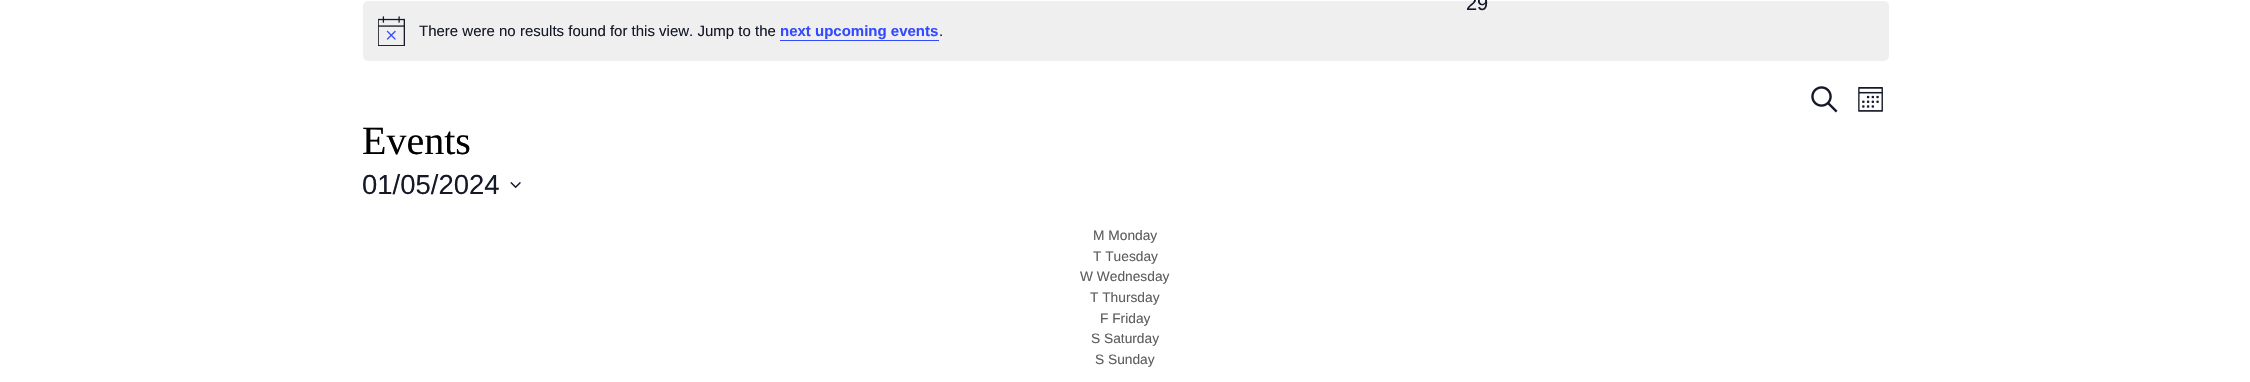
void draw(SkCanvas* canvas) {
    SkPaint paint;
    paint.setAntiAlias(true);
    auto face = [&](const char* family, int weight, float size, bool italic = false) {
        SkFontStyle style(weight, SkFontStyle::kNormal_Width,
            italic ? SkFontStyle::kItalic_Slant : SkFontStyle::kUpright_Slant);
        SkFont result(fontMgr->matchFamilyStyle(family, style), size);
        result.setSubpixel(true);
        return result;
    };
    auto write = [&](const char* s, float x, float y, const SkFont& font, SkColor color) {
        SkPaint ink(SkColor4f::FromColor(color));
        ink.setAntiAlias(true);
        canvas->drawString(s, x, y, font, ink);
    };
    auto block = [&](float x, float y, float w, float h, SkColor color) {
        SkPaint ink(SkColor4f::FromColor(color));
        ink.setAntiAlias(true);
        canvas->drawRect(SkRect::MakeXYWH(x, y, w, h), ink);
    };
    auto card = [&](float x, float y, float w, float h, float radius, SkColor color) {
        SkPaint ink(SkColor4f::FromColor(color));
        ink.setAntiAlias(true);
        canvas->drawRoundRect(SkRect::MakeXYWH(x, y, w, h), radius, radius, ink);
    };
    auto paste = [&](const char* path, float x, float y, float w, float h) {
        auto image = SkImages::DeferredFromEncodedData(SkData::MakeFromFileName(path));
        canvas->drawImageRect(image, SkRect::MakeXYWH(x, y, w, h), SkSamplingOptions());
    };
    canvas->clear(SK_ColorWHITE);
    card(363, 1, 1526, 60, 5, SkColorSetRGB(239, 239, 240));
    paste("pic1.png", 378, 16, 27, 30);
    auto kFont1 = face("Liberation Sans", 400, 15);
    write("There were no results found for this view. Jump to the", 419, 36, kFont1, SkColorSetRGB(20, 24, 39));
    auto kFont2 = face("Liberation Sans", 700, 15);
    write("next upcoming events", 780, 36, kFont2, SkColorSetRGB(51, 74, 255));
    block(780, 40, 159, 1, SkColorSetRGB(51, 74, 255));
    write(".", 939, 36, kFont1, SkColorSetRGB(20, 24, 39));
    paste("pic2.png", 1811, 86, 27, 27);
    paste("pic3.png", 1858, 87, 25, 25);
    auto kFont3 = face("Liberation Serif", 400, 40);
    write("Events", 362, 154, kFont3, SK_ColorBLACK);
    auto kFont4 = face("Liberation Sans", 400, 27.5f);
    write("01/05/2024", 362, 194, kFont4, SkColorSetRGB(20, 24, 39));
    paste("pic4.png", 510, 182, 11, 7);
    auto kFont5 = face("Liberation Sans", 400, 20);
    write("29", 1466, 10, kFont5, SkColorSetRGB(20, 24, 39));
    auto kFont6 = face("Liberation Sans", 400, 13.75f);
    write("M Monday", 1093, 240, kFont6, SkColorSetRGB(93, 93, 93));
    write("T Tuesday", 1093, 261, kFont6, SkColorSetRGB(93, 93, 93));
    write("W Wednesday", 1080, 281, kFont6, SkColorSetRGB(93, 93, 93));
    write("T Thursday", 1090, 302, kFont6, SkColorSetRGB(93, 93, 93));
    write("F Friday", 1100, 323, kFont6, SkColorSetRGB(93, 93, 93));
    write("S Saturday", 1091, 343, kFont6, SkColorSetRGB(93, 93, 93));
    write("S Sunday", 1095, 364, kFont6, SkColorSetRGB(93, 93, 93));
}
